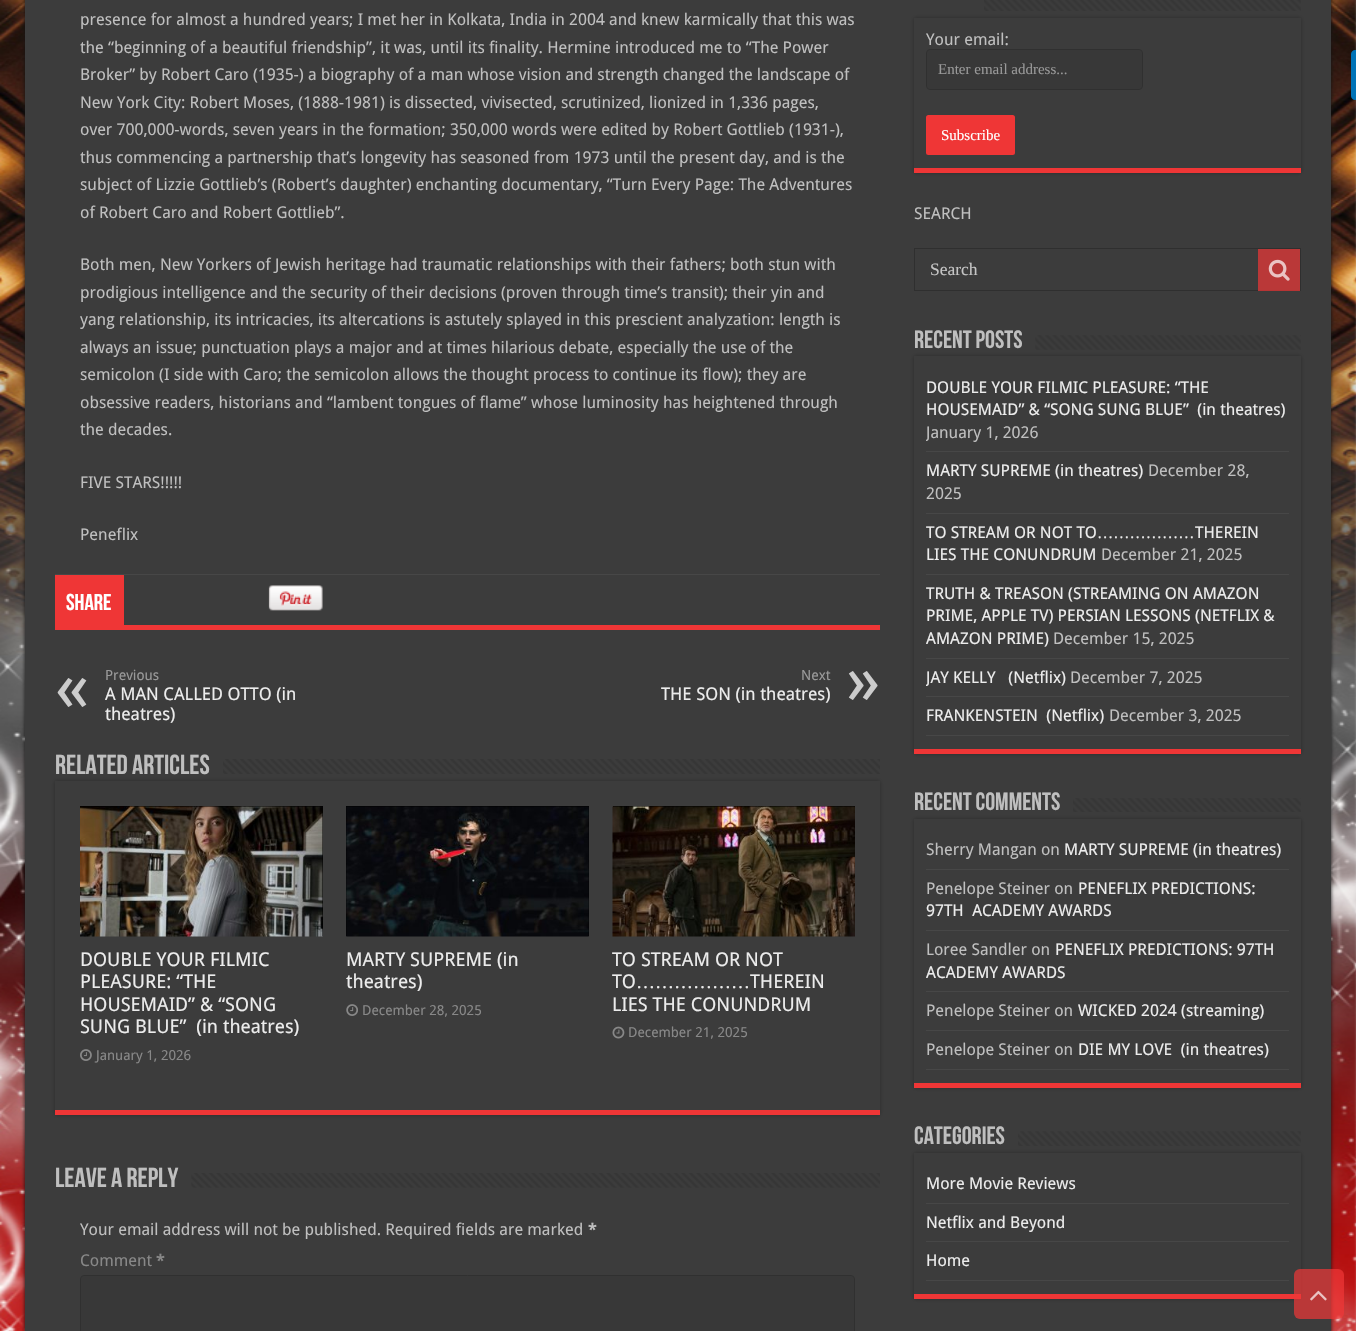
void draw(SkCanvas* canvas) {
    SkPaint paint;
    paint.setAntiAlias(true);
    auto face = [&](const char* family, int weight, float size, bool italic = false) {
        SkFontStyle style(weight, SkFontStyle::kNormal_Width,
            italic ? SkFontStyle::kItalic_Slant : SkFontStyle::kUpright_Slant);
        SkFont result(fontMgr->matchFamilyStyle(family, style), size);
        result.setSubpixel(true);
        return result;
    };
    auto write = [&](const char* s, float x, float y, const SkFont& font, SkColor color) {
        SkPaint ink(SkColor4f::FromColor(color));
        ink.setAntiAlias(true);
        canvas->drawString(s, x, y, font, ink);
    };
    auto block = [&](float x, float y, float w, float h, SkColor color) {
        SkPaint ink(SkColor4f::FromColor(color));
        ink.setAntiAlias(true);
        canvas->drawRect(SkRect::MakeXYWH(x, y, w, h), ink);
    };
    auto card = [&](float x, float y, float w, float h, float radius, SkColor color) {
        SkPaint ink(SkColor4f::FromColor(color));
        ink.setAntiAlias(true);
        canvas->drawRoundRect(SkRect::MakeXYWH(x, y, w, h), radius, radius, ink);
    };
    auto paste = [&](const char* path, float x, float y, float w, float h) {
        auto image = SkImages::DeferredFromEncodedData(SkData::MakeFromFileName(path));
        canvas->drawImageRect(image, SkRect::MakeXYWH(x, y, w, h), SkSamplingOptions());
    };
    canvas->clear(SK_ColorWHITE);
    paste("pic1.png", 1354, 0, 2, 1331);
    paste("pic2.png", 0, 0, 1356, 1331);
    paint.setColor(SkColorSetRGB(20, 20, 20));
    paint.setMaskFilter(SkMaskFilter::MakeBlur(kNormal_SkBlurStyle, 2));
    canvas->drawRect(SkRect::MakeXYWH(25, -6, 1306, 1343), paint);
    paint.setMaskFilter(nullptr);
    block(25, 0, 1306, 1331, SkColorSetRGB(60, 60, 60));
    block(55, 625, 825, 5, SkColorSetRGB(239, 54, 54));
    auto kFont1 = face("Droid Sans", 400, 16.25f);
    write("presence for almost a hundred years; I met her in Kolkata, India in 2004 and knew karmically that this was", 80, 25, kFont1, SkColorSetRGB(191, 191, 191));
    write("the “beginning of a beautiful friendship”, it was, until its finality. Hermine introduced me to “The Power", 80, 53, kFont1, SkColorSetRGB(191, 191, 191));
    write("Broker” by Robert Caro (1935-) a biography of a man whose vision and strength changed the landscape of", 80, 80, kFont1, SkColorSetRGB(191, 191, 191));
    write("New York City: Robert Moses, (1888-1981) is dissected, vivisected, scrutinized, lionized in 1,336 pages,", 80, 108, kFont1, SkColorSetRGB(191, 191, 191));
    write("over 700,000-words, seven years in the formation; 350,000 words were edited by Robert Gottlieb (1931-),", 80, 135, kFont1, SkColorSetRGB(191, 191, 191));
    write("thus commencing a partnership that’s longevity has seasoned from 1973 until the present day, and is the", 80, 163, kFont1, SkColorSetRGB(191, 191, 191));
    write("subject of Lizzie Gottlieb’s (Robert’s daughter) enchanting documentary, “Turn Every Page: The Adventures", 80, 190, kFont1, SkColorSetRGB(191, 191, 191));
    write("of Robert Caro and Robert Gottlieb”.", 80, 218, kFont1, SkColorSetRGB(191, 191, 191));
    write("Both men, New Yorkers of Jewish heritage had traumatic relationships with their fathers; both stun with", 80, 270, kFont1, SkColorSetRGB(191, 191, 191));
    write("prodigious intelligence and the security of their decisions (proven through time’s transit); their yin and", 80, 298, kFont1, SkColorSetRGB(191, 191, 191));
    write("yang relationship, its intricacies, its altercations is astutely splayed in this prescient analyzation: length is", 80, 325, kFont1, SkColorSetRGB(191, 191, 191));
    write("always an issue; punctuation plays a major and at times hilarious debate, especially the use of the", 80, 353, kFont1, SkColorSetRGB(191, 191, 191));
    write("semicolon (I side with Caro; the semicolon allows the thought process to continue its flow); they are", 80, 380, kFont1, SkColorSetRGB(191, 191, 191));
    write("obsessive readers, historians and “lambent tongues of flame” whose luminosity has heightened through", 80, 408, kFont1, SkColorSetRGB(191, 191, 191));
    write("the decades.", 80, 435, kFont1, SkColorSetRGB(191, 191, 191));
    write("FIVE STARS!!!!!", 80, 488, kFont1, SkColorSetRGB(191, 191, 191));
    write("Peneflix", 80, 540, kFont1, SkColorSetRGB(191, 191, 191));
    block(55, 574, 825, 1, SkColorSetRGB(71, 71, 71));
    block(55, 575, 69, 50, SkColorSetRGB(239, 54, 54));
    auto kFont2 = face("Bebas Neue", 700, 23);
    write("Share", 66, 610, kFont2, SK_ColorWHITE);
    paste("pic3.png", 268, 585, 55, 26);
    auto kFont3 = face("Droid Sans", 400, 14);
    write("Previous", 105, 680, kFont3, SkColorSetRGB(153, 153, 153));
    auto kFont4 = face("Droid Sans", 400, 70);
    write("«", 55, 711, kFont4, SkColorSetRGB(204, 204, 204));
    auto kFont5 = face("Droid Sans", 400, 17.5f);
    write("A MAN CALLED OTTO (in", 105, 700, kFont5, SkColorSetRGB(236, 236, 236));
    write("theatres)", 105, 720, kFont5, SkColorSetRGB(236, 236, 236));
    write("Next", 801, 680, kFont3, SkColorSetRGB(153, 153, 153));
    write("»", 846, 704, kFont4, SkColorSetRGB(204, 204, 204));
    write("THE SON (in theatres)", 661, 700, kFont5, SkColorSetRGB(236, 236, 236));
    paint.setColor(SkColorSetRGB(42, 42, 42));
    paint.setMaskFilter(SkMaskFilter::MakeBlur(kNormal_SkBlurStyle, 2));
    canvas->drawRect(SkRect::MakeXYWH(55, 781, 825, 334), paint);
    paint.setMaskFilter(nullptr);
    auto kFont6 = face("Bebas Neue", 700, 27.5f);
    write("Related Articles", 55, 774, kFont6, SkColorSetRGB(191, 191, 191));
    paste("pic4.png", 223, 759, 657, 15);
    block(55, 781, 825, 329, SkColorSetRGB(60, 60, 60));
    block(55, 1110, 825, 5, SkColorSetRGB(239, 54, 54));
    block(80, 806, 243, 130, SK_ColorBLACK);
    paste("pic5.png", 80, 806, 243, 131);
    auto kFont7 = face("Droid Sans", 400, 19);
    write("DOUBLE YOUR FILMIC", 80, 966, kFont7, SkColorSetRGB(236, 236, 236));
    write("PLEASURE: “THE", 80, 988, kFont7, SkColorSetRGB(236, 236, 236));
    write("HOUSEMAID” & “SONG", 80, 1011, kFont7, SkColorSetRGB(236, 236, 236));
    write("SUNG BLUE”  (in theatres)", 80, 1033, kFont7, SkColorSetRGB(236, 236, 236));
    paste("pic6.png", 80, 1049, 12, 12);
    auto kFont8 = face("Droid Sans", 400, 13.75f);
    write("January 1, 2026", 96, 1060, kFont8, SkColorSetRGB(136, 136, 136));
    block(346, 806, 243, 130, SK_ColorBLACK);
    paste("pic7.png", 346, 806, 243, 131);
    write("MARTY SUPREME (in", 346, 966, kFont7, SkColorSetRGB(236, 236, 236));
    write("theatres)", 346, 988, kFont7, SkColorSetRGB(236, 236, 236));
    paste("pic8.png", 346, 1004, 12, 12);
    write("December 28, 2025", 362, 1015, kFont8, SkColorSetRGB(136, 136, 136));
    block(613, 806, 242, 1, SK_ColorBLACK);
    paste("pic9.png", 612, 806, 243, 131);
    write("TO STREAM OR NOT", 612, 966, kFont7, SkColorSetRGB(236, 236, 236));
    write("TO", 612, 988, kFont7, SkColorSetRGB(236, 236, 236));
    auto kFont9 = face("Liberation Serif", 400, 19);
    write("………………", 636, 988, kFont9, SkColorSetRGB(236, 236, 236));
    write("THEREIN", 750, 988, kFont7, SkColorSetRGB(236, 236, 236));
    write("LIES THE CONUNDRUM", 612, 1011, kFont7, SkColorSetRGB(236, 236, 236));
    paste("pic10.png", 612, 1026, 13, 13);
    write("December 21, 2025", 628, 1037, kFont8, SkColorSetRGB(136, 136, 136));
    write("Leave a Reply", 55, 1187, kFont6, SkColorSetRGB(191, 191, 191));
    paste("pic11.png", 191, 1173, 689, 15);
    write("Your email address will not be published. Required fields are marked", 80, 1235, kFont1, SkColorSetRGB(191, 191, 191));
    auto kFont10 = face("Droid Sans", 700, 16.25f);
    write("*", 588, 1235, kFont10, SkColorSetRGB(191, 191, 191));
    write("Comment", 80, 1266, kFont1, SkColorSetRGB(136, 136, 136));
    write("*", 156, 1266, kFont10, SkColorSetRGB(136, 136, 136));
    paint.setColor(SkColorSetRGB(56, 56, 56));
    canvas->drawRoundRect(SkRect::MakeXYWH(80.5f, 1275.5f, 774, 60), 3.5f, 3.5f, paint);
    paint.setStyle(SkPaint::kStroke_Style);
    paint.setStrokeWidth(1);
    paint.setColor(SkColorSetRGB(48, 48, 48));
    canvas->drawRoundRect(SkRect::MakeXYWH(80.5f, 1275.5f, 774, 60), 3.5f, 3.5f, paint);
    paste("pic12.png", 984, 0, 317, 11);
    paint.setStyle(SkPaint::kFill_Style);
    paint.setColor(SkColorSetRGB(42, 42, 42));
    paint.setMaskFilter(SkMaskFilter::MakeBlur(kNormal_SkBlurStyle, 2));
    canvas->drawRect(SkRect::MakeXYWH(914, 18, 387, 155), paint);
    paint.setMaskFilter(nullptr);
    block(914, 18, 387, 150, SkColorSetRGB(60, 60, 60));
    block(914, 168, 387, 5, SkColorSetRGB(239, 54, 54));
    write("Your email:", 926, 45, kFont1, SkColorSetRGB(191, 191, 191));
    paint.setColor(SkColorSetRGB(56, 56, 56));
    canvas->drawRoundRect(SkRect::MakeXYWH(926.5f, 49.5f, 216, 40), 3.5f, 3.5f, paint);
    paint.setStyle(SkPaint::kStroke_Style);
    paint.setColor(SkColorSetRGB(48, 48, 48));
    canvas->drawRoundRect(SkRect::MakeXYWH(926.5f, 49.5f, 216, 40), 3.5f, 3.5f, paint);
    auto kFont11 = face("Liberation Serif", 400, 15);
    write("Enter email address...", 938, 74, kFont11, SkColorSetRGB(153, 153, 153));
    card(926, 115, 89, 40, 2.5f, SkColorSetRGB(239, 54, 54));
    write("Subscribe", 941, 140, kFont11, SK_ColorWHITE);
    write("SEARCH", 914, 219, kFont1, SkColorSetRGB(191, 191, 191));
    paint.setColor(SkColorSetRGB(47, 47, 47));
    canvas->drawRect(SkRect::MakeXYWH(914.5f, 248.5f, 386, 42), paint);
    auto kFont12 = face("Liberation Serif", 400, 17.5f);
    write("Search", 930, 275, kFont12, SkColorSetRGB(197, 197, 197));
    block(1258, 249, 42, 42, SkColorSetARGB(179, 239, 54, 54));
    paste("pic13.png", 1268, 259, 22, 22);
    auto kFont13 = face("Bebas Neue", 700, 25);
    write("Recent Posts", 914, 348, kFont13, SkColorSetRGB(191, 191, 191));
    paint.setStyle(SkPaint::kFill_Style);
    paint.setColor(SkColorSetRGB(42, 42, 42));
    paint.setMaskFilter(SkMaskFilter::MakeBlur(kNormal_SkBlurStyle, 2));
    canvas->drawRect(SkRect::MakeXYWH(914, 356, 387, 398), paint);
    paint.setMaskFilter(nullptr);
    paste("pic14.png", 1035, 335, 266, 15);
    block(914, 356, 387, 393, SkColorSetRGB(60, 60, 60));
    block(914, 749, 387, 5, SkColorSetRGB(239, 54, 54));
    block(926, 451, 363, 1, SkColorSetRGB(71, 71, 71));
    write("DOUBLE YOUR FILMIC PLEASURE: “THE", 926, 393, kFont1, SkColorSetRGB(236, 236, 236));
    write("HOUSEMAID” & “SONG SUNG BLUE”  (in theatres)", 926, 415, kFont1, SkColorSetRGB(236, 236, 236));
    canvas->save();
    canvas->clipRect(SkRect::MakeXYWH(926, 369, 363, 82));
    write("January 1, 2026", 926, 438, kFont1, SkColorSetRGB(191, 191, 191));
    canvas->restore();
    block(926, 513, 363, 1, SkColorSetRGB(71, 71, 71));
    write("MARTY SUPREME (in theatres)", 926, 476, kFont1, SkColorSetRGB(236, 236, 236));
    write("December 28,", 1148, 476, kFont1, SkColorSetRGB(191, 191, 191));
    write("2025", 926, 499, kFont1, SkColorSetRGB(191, 191, 191));
    block(926, 574, 363, 1, SkColorSetRGB(71, 71, 71));
    write("TO STREAM OR NOT TO", 926, 538, kFont1, SkColorSetRGB(236, 236, 236));
    auto kFont14 = face("Liberation Serif", 400, 16.25f);
    write("………………", 1097, 538, kFont14, SkColorSetRGB(236, 236, 236));
    write("THEREIN", 1195, 538, kFont1, SkColorSetRGB(236, 236, 236));
    write("LIES THE CONUNDRUM", 926, 560, kFont1, SkColorSetRGB(236, 236, 236));
    write("December 21, 2025", 1101, 560, kFont1, SkColorSetRGB(191, 191, 191));
    block(926, 658, 363, 1, SkColorSetRGB(71, 71, 71));
    write("TRUTH & TREASON (STREAMING ON AMAZON", 926, 599, kFont1, SkColorSetRGB(236, 236, 236));
    write("PRIME, APPLE TV) PERSIAN LESSONS (NETFLIX &", 926, 621, kFont1, SkColorSetRGB(236, 236, 236));
    write("AMAZON PRIME)", 926, 644, kFont1, SkColorSetRGB(236, 236, 236));
    write("December 15, 2025", 1053, 644, kFont1, SkColorSetRGB(191, 191, 191));
    block(926, 696, 363, 1, SkColorSetRGB(71, 71, 71));
    canvas->save();
    canvas->clipRect(SkRect::MakeXYWH(926, 659, 363, 37));
    write("JAY KELLY   (Netflix)", 926, 683, kFont1, SkColorSetRGB(236, 236, 236));
    canvas->restore();
    write("December 7, 2025", 1070, 683, kFont1, SkColorSetRGB(191, 191, 191));
    block(926, 735, 363, 1, SkColorSetRGB(71, 71, 71));
    write("FRANKENSTEIN  (Netflix)", 926, 721, kFont1, SkColorSetRGB(236, 236, 236));
    write("December 3, 2025", 1109, 721, kFont1, SkColorSetRGB(191, 191, 191));
    write("Recent Comments", 914, 810, kFont13, SkColorSetRGB(191, 191, 191));
    paste("pic15.png", 1073, 798, 228, 14);
    paint.setMaskFilter(SkMaskFilter::MakeBlur(kNormal_SkBlurStyle, 2));
    canvas->drawRect(SkRect::MakeXYWH(914, 819, 387, 269), paint);
    paint.setMaskFilter(nullptr);
    block(914, 819, 387, 264, SkColorSetRGB(60, 60, 60));
    block(914, 1083, 387, 5, SkColorSetRGB(239, 54, 54));
    block(926, 869, 363, 1, SkColorSetRGB(71, 71, 71));
    write("Sherry Mangan on", 926, 855, kFont1, SkColorSetRGB(191, 191, 191));
    write("MARTY SUPREME (in theatres)", 1064, 855, kFont1, SkColorSetRGB(236, 236, 236));
    block(926, 930, 363, 1, SkColorSetRGB(71, 71, 71));
    write("Penelope Steiner on", 926, 894, kFont1, SkColorSetRGB(191, 191, 191));
    write("PENEFLIX PREDICTIONS:", 1078, 894, kFont1, SkColorSetRGB(236, 236, 236));
    write("97TH  ACADEMY AWARDS", 926, 916, kFont1, SkColorSetRGB(236, 236, 236));
    block(926, 991, 363, 1, SkColorSetRGB(71, 71, 71));
    write("Loree Sandler on", 926, 955, kFont1, SkColorSetRGB(191, 191, 191));
    write("PENEFLIX PREDICTIONS: 97TH", 1055, 955, kFont1, SkColorSetRGB(236, 236, 236));
    write("ACADEMY AWARDS", 926, 978, kFont1, SkColorSetRGB(236, 236, 236));
    block(926, 1030, 363, 1, SkColorSetRGB(71, 71, 71));
    write("Penelope Steiner on", 926, 1016, kFont1, SkColorSetRGB(191, 191, 191));
    write("WICKED 2024 (streaming)", 1078, 1016, kFont1, SkColorSetRGB(236, 236, 236));
    block(926, 1069, 363, 1, SkColorSetRGB(71, 71, 71));
    write("Penelope Steiner on", 926, 1055, kFont1, SkColorSetRGB(191, 191, 191));
    write("DIE MY LOVE  (in theatres)", 1078, 1055, kFont1, SkColorSetRGB(236, 236, 236));
    write("Categories", 914, 1144, kFont13, SkColorSetRGB(191, 191, 191));
    paste("pic16.png", 1018, 1131, 283, 15);
    paint.setMaskFilter(SkMaskFilter::MakeBlur(kNormal_SkBlurStyle, 2));
    canvas->drawRect(SkRect::MakeXYWH(914, 1153, 387, 146), paint);
    paint.setMaskFilter(nullptr);
    block(914, 1153, 387, 141, SkColorSetRGB(60, 60, 60));
    block(914, 1294, 387, 5, SkColorSetRGB(239, 54, 54));
    block(926, 1203, 363, 1, SkColorSetRGB(71, 71, 71));
    write("More Movie Reviews", 926, 1189, kFont1, SkColorSetRGB(236, 236, 236));
    block(926, 1241, 363, 1, SkColorSetRGB(71, 71, 71));
    write("Netflix and Beyond", 926, 1228, kFont1, SkColorSetRGB(236, 236, 236));
    block(926, 1280, 363, 1, SkColorSetRGB(71, 71, 71));
    write("Home", 926, 1266, kFont1, SkColorSetRGB(236, 236, 236));
    paint.setColor(SkColorSetARGB(51, 0, 0, 0));
    paint.setMaskFilter(SkMaskFilter::MakeBlur(kNormal_SkBlurStyle, 6));
    canvas->drawRoundRect(SkRect::MakeXYWH(1351, 55, 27, 50), 4, 4, paint);
    paint.setMaskFilter(nullptr);
    paint.setColor(SkColorSetRGB(0, 115, 183));
    canvas->drawPath(SkPathBuilder().moveTo(1355, 50).lineTo(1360, 50).lineTo(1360, 100).lineTo(1355, 100).cubicTo(1353, 100, 1351, 98, 1351, 96).lineTo(1351, 54).cubicTo(1351, 52, 1353, 50, 1355, 50).close().detach(), paint);
    card(1294, 1269, 50, 50, 6, SkColorSetARGB(179, 239, 54, 54));
    paste("pic17.png", 1310, 1290, 17, 11);
}
